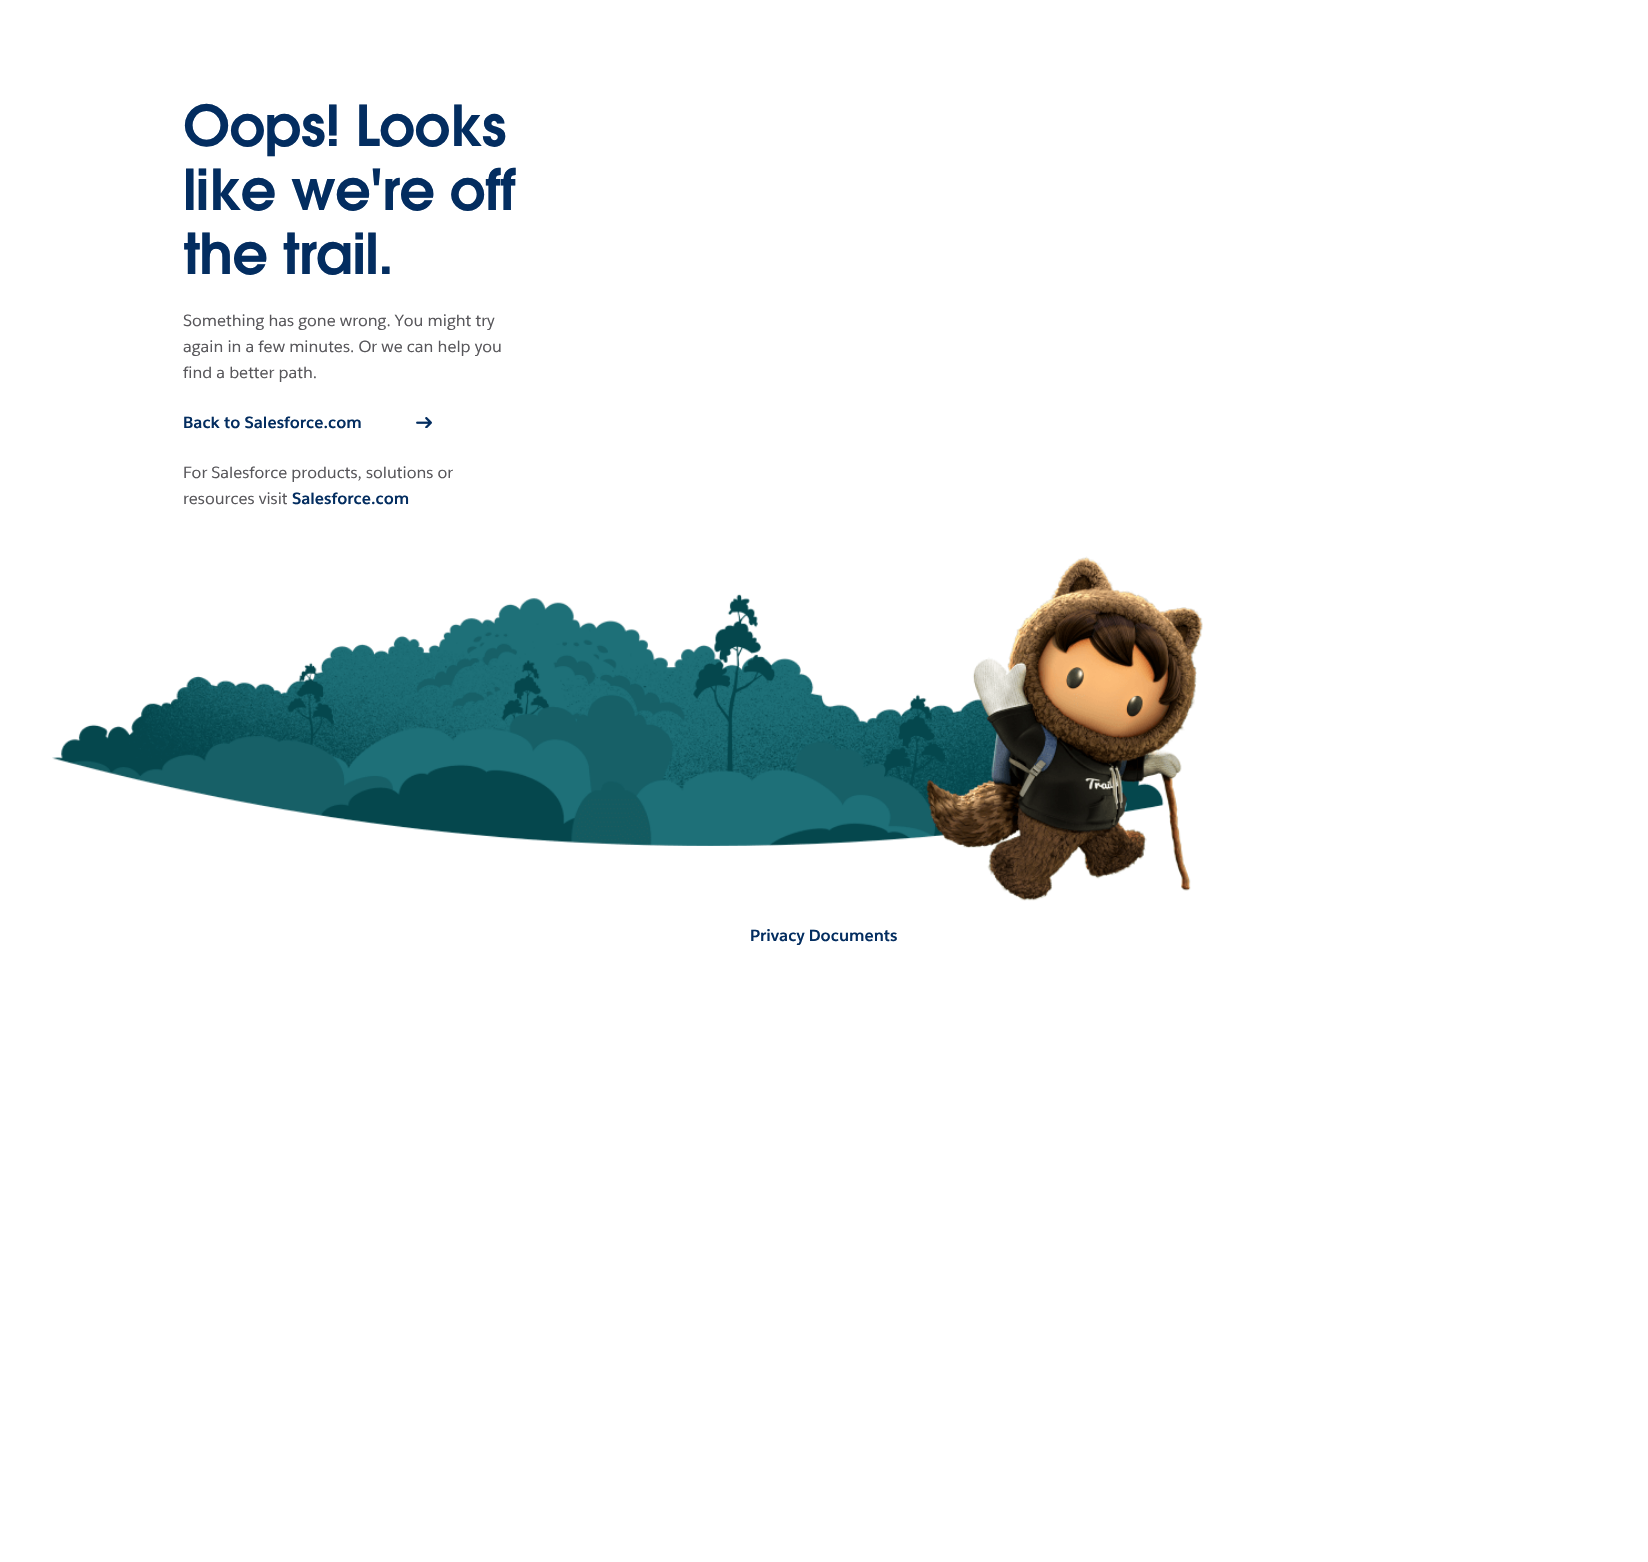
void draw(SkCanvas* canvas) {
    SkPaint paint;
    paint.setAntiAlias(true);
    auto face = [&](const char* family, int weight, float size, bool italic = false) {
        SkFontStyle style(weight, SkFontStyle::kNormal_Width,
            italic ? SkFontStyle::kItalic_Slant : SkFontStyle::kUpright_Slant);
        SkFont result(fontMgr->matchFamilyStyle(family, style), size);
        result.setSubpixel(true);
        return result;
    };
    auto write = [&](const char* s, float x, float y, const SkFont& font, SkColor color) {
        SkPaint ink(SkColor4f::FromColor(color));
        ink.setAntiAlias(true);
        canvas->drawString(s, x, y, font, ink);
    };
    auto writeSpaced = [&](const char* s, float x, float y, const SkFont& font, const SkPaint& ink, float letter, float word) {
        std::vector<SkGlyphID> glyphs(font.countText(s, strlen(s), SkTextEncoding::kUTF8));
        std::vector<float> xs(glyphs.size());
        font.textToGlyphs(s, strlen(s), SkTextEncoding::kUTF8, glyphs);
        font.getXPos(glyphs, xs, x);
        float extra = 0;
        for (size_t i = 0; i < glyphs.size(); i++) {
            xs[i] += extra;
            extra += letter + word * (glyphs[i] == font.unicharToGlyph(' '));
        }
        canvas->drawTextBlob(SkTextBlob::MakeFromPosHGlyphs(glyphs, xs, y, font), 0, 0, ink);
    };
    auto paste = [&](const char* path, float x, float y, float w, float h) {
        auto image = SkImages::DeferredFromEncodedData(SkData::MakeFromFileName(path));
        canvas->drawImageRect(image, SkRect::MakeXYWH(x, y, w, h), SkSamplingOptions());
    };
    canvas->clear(SK_ColorWHITE);
    auto kFont1 = face("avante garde", 600, 56);
    paint.setColor(SkColorSetRGB(3, 45, 96));
    writeSpaced("Oops! Looks", 183, 146, kFont1, paint, -0.6f, 0);
    writeSpaced("like we're off", 183, 210, kFont1, paint, -0.6f, 0);
    writeSpaced("the trail.", 183, 274, kFont1, paint, -0.6f, 0);
    auto kFont2 = face("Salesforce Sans", 400, 16);
    write("Something has gone wrong. You might try", 183, 326, kFont2, SkColorSetRGB(88, 87, 91));
    write("again in a few minutes. Or we can help you", 183, 352, kFont2, SkColorSetRGB(88, 87, 91));
    write("find a better path.", 183, 378, kFont2, SkColorSetRGB(88, 87, 91));
    auto kFont3 = face("Salesforce Sans", 700, 16);
    write("Back to Salesforce.com", 183, 428, kFont3, SkColorSetRGB(3, 45, 96));
    paste("pic1.png", 416, 417, 16, 11);
    write("For Salesforce products, solutions or", 183, 478, kFont2, SkColorSetRGB(88, 87, 91));
    write("resources visit", 183, 504, kFont2, SkColorSetRGB(88, 87, 91));
    write("Salesforce.com", 292, 504, kFont3, SkColorSetRGB(3, 45, 96));
    paste("pic2.png", 52, 556, 1151, 345);
    write("Privacy Documents", 750, 941, kFont3, SkColorSetRGB(3, 45, 96));
}
